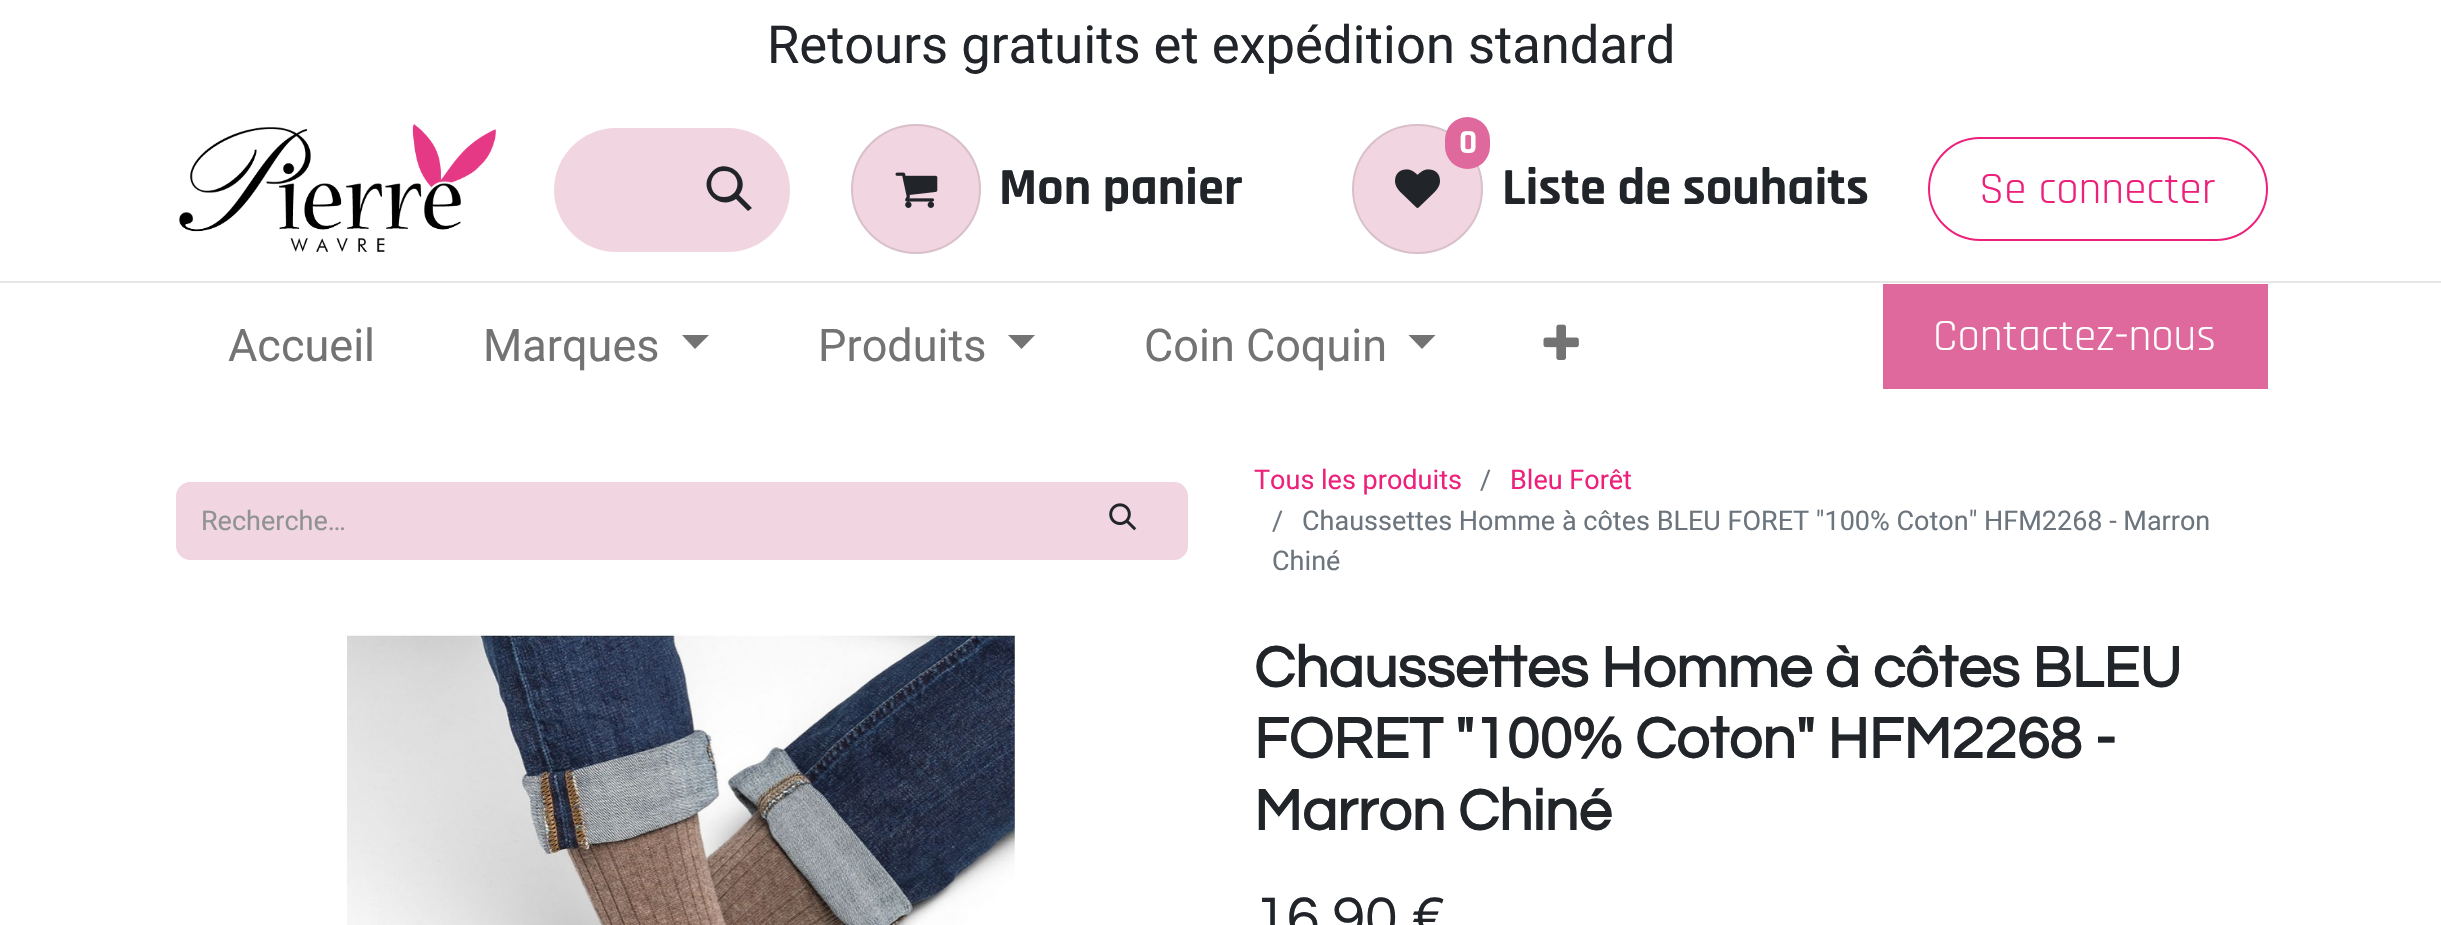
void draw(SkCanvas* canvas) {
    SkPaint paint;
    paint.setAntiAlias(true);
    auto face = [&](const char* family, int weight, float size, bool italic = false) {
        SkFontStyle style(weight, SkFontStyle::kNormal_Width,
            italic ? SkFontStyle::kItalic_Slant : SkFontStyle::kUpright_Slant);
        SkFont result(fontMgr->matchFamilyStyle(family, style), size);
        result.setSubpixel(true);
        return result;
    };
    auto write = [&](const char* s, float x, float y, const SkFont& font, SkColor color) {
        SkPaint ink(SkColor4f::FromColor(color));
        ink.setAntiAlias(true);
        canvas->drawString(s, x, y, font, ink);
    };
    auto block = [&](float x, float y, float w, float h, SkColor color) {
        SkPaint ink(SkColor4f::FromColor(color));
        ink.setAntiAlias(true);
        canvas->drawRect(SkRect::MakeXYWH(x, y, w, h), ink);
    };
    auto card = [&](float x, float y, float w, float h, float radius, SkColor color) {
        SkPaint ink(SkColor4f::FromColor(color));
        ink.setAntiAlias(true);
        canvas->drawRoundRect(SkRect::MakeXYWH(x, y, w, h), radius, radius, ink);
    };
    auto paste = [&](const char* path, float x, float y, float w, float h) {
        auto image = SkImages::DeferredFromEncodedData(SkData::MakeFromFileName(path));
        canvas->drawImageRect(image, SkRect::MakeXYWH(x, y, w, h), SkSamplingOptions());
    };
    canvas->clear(SK_ColorWHITE);
    auto kFont1 = face("Heebo", 400, 52.5f);
    write("Retours gratuits et expédition standard", 767, 63, kFont1, SkColorSetRGB(33, 37, 41));
    paste("pic1.png", 179, 124, 317, 128);
    paint.setColor(SkColorSetRGB(241, 213, 225));
    canvas->drawPath(SkPathBuilder().moveTo(616, 128).lineTo(671, 128).lineTo(671, 252).lineTo(616, 252).cubicTo(582, 252, 554, 224, 554, 190).cubicTo(554, 156, 582, 128, 616, 128).close().detach(), paint);
    canvas->drawPath(SkPathBuilder().moveTo(668, 128).lineTo(728, 128).cubicTo(762, 128, 790, 156, 790, 190).cubicTo(790, 224, 762, 252, 728, 252).lineTo(668, 252).close().detach(), paint);
    paint.setColor(SkColorSetRGB(33, 37, 41));
    canvas->drawPath(SkPathBuilder().moveTo(711, 173).cubicTo(725, 155, 753, 177, 739, 195).lineTo(752, 208).lineTo(748, 211).lineTo(736, 199).cubicTo(719, 211, 697, 189, 711, 173).close().moveTo(724, 171).cubicTo(707, 171, 707, 197, 724, 197).cubicTo(742, 197, 742, 171, 724, 171).close().detach(), paint);
    paint.setColor(SkColorSetRGB(241, 213, 225));
    canvas->drawCircle(916, 189, 65, paint);
    paint.setStyle(SkPaint::kStroke_Style);
    paint.setStrokeWidth(2);
    paint.setColor(SkColorSetARGB(26, 0, 0, 0));
    canvas->drawCircle(916, 189, 64, paint);
    paste("pic2.png", 895, 172, 43, 36);
    auto kFont2 = face("Rajdhani", 700, 52.5f);
    write("Mon panier", 999, 204, kFont2, SkColorSetRGB(33, 37, 41));
    card(1352, 124, 131, 130, 65, SkColorSetRGB(241, 213, 225));
    canvas->drawRoundRect(SkRect::MakeXYWH(1353, 125, 129, 128), 64, 64, paint);
    card(1445, 117, 45, 52, 22.5f, SkColorSetRGB(223, 105, 156));
    auto kFont3 = face("Rajdhani", 700, 34);
    write("0", 1459, 153, kFont3, SK_ColorWHITE);
    paste("pic3.png", 1395, 169, 45, 39);
    write("Liste de souhaits", 1502, 204, kFont2, SkColorSetRGB(33, 37, 41));
    paint.setColor(SkColorSetRGB(237, 33, 123));
    canvas->drawRoundRect(SkRect::MakeXYWH(1929, 138, 338, 102), 51, 51, paint);
    auto kFont4 = face("Rajdhani", 400, 45);
    write("Se connecter", 1979, 203, kFont4, SkColorSetRGB(237, 33, 123));
    block(0, 281, 2441, 2, SkColorSetRGB(230, 230, 230));
    auto kFont5 = face("Roboto", 400, 45);
    write("Accueil", 228, 361, kFont5, SkColorSetRGB(115, 115, 115));
    write("Marques", 483, 361, kFont5, SkColorSetRGB(115, 115, 115));
    paint.setStyle(SkPaint::kFill_Style);
    paint.setColor(SkColorSetRGB(115, 115, 115));
    canvas->drawPath(SkPathBuilder().moveTo(682, 335).lineTo(709, 335).lineTo(695, 349).close().detach(), paint);
    write("Produits", 818, 361, kFont5, SkColorSetRGB(115, 115, 115));
    canvas->drawPath(SkPathBuilder().moveTo(1008, 335).lineTo(1035, 335).lineTo(1021.5f, 349).close().detach(), paint);
    write("Coin Coquin", 1144, 361, kFont5, SkColorSetRGB(115, 115, 115));
    canvas->drawPath(SkPathBuilder().moveTo(1408.5f, 335).lineTo(1435.5f, 335).lineTo(1422, 349).close().detach(), paint);
    paste("pic4.png", 1543, 324, 36, 36);
    block(1883, 284, 385, 105, SkColorSetRGB(223, 105, 156));
    write("Contactez-nous", 1933, 350, kFont4, SK_ColorWHITE);
    paint.setColor(SkColorSetRGB(241, 213, 225));
    canvas->drawPath(SkPathBuilder().moveTo(190, 482).lineTo(1060, 482).lineTo(1060, 560).lineTo(190, 560).cubicTo(182.5f, 560, 176, 553.5f, 176, 546).lineTo(176, 496).cubicTo(176, 488.5f, 182.5f, 482, 190, 482).close().detach(), paint);
    auto kFont6 = face("Heebo", 400, 27);
    write("Recherche…", 201, 530, kFont6, SkColorSetRGB(144, 146, 148));
    canvas->drawPath(SkPathBuilder().moveTo(1059, 483).lineTo(1174, 483).cubicTo(1181, 483, 1187, 489, 1187, 496).lineTo(1187, 546).cubicTo(1187, 553, 1181, 559, 1174, 559).lineTo(1059, 559).close().detach(), paint);
    paint.setStyle(SkPaint::kStroke_Style);
    canvas->drawPath(SkPathBuilder().moveTo(1059, 483).lineTo(1174, 483).cubicTo(1181, 483, 1187, 489, 1187, 496).lineTo(1187, 546).cubicTo(1187, 553, 1181, 559, 1174, 559).lineTo(1059, 559).close().detach(), paint);
    paste("pic5.png", 1109, 503, 28, 28);
    write("Tous les produits", 1254, 489, kFont6, SkColorSetRGB(237, 33, 123));
    write("/", 1480, 489, kFont6, SkColorSetRGB(108, 117, 125));
    write("Bleu Forêt", 1510, 489, kFont6, SkColorSetRGB(237, 33, 123));
    write("/", 1272, 530, kFont6, SkColorSetRGB(108, 117, 125));
    write("Chaussettes Homme à côtes BLEU FORET \"100% Coton\" HFM2268 - Marron", 1302, 530, kFont6, SkColorSetRGB(108, 117, 125));
    write("Chiné", 1272, 570, kFont6, SkColorSetRGB(108, 117, 125));
    paste("pic6.png", 347, 634, 668, 291);
    auto kFont7 = face("Questrial", 700, 59.4f);
    write("Chaussettes Homme à côtes BLEU", 1254, 687, kFont7, SkColorSetRGB(33, 37, 41));
    write("FORET \"100% Coton\" HFM2268 -", 1254, 758, kFont7, SkColorSetRGB(33, 37, 41));
    write("Marron Chiné", 1254, 830, kFont7, SkColorSetRGB(33, 37, 41));
    auto kFont8 = face("Questrial", 400, 59.4f);
    write("16,90 €", 1254, 937, kFont8, SkColorSetRGB(33, 37, 41));
}
